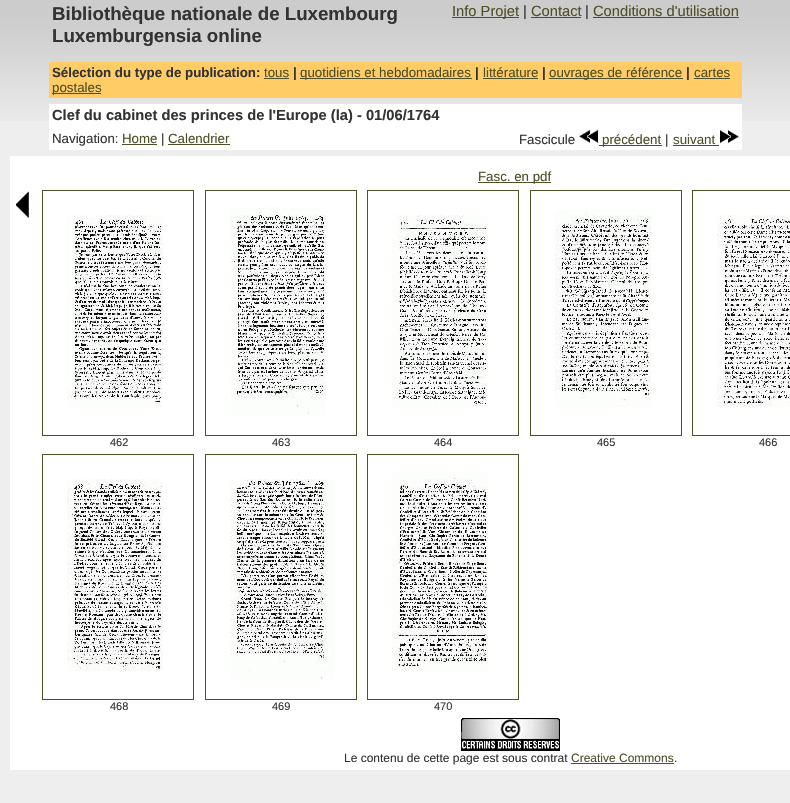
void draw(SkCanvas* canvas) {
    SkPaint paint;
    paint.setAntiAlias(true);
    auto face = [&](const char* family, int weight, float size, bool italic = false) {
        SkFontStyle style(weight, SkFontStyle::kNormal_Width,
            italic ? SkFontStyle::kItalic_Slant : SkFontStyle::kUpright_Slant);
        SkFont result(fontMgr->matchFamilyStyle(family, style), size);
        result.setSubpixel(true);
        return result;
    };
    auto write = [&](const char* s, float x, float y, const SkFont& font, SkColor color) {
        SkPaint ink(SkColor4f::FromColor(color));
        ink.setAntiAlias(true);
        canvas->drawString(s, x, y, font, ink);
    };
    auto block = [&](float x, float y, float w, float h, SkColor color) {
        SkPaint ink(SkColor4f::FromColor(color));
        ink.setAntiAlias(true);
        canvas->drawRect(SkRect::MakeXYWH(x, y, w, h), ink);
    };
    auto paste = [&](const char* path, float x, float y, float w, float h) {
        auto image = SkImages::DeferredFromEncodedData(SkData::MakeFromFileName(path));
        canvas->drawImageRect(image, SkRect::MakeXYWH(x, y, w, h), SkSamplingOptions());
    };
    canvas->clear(SkColorSetRGB(238, 238, 238));
    paste("pic1.png", 0, 0, 790, 121);
    paste("pic2.png", 49, 0, 693, 62);
    auto kFont1 = face("Liberation Sans", 700, 18.7f);
    write("Bibliothèque nationale de Luxembourg", 52, 20, kFont1, SkColorSetRGB(51, 51, 51));
    write("Luxemburgensia online", 52, 42, kFont1, SkColorSetRGB(51, 51, 51));
    block(452, 17, 67, 1, SkColorSetRGB(79, 79, 40));
    auto kFont2 = face("Liberation Sans", 400, 14.7f);
    write("Info Projet", 452, 16, kFont2, SkColorSetRGB(79, 79, 40));
    write("|", 523, 16, kFont2, SkColorSetRGB(51, 51, 51));
    write("Contact", 531, 16, kFont2, SkColorSetRGB(79, 79, 40));
    block(531, 17, 50, 1, SkColorSetRGB(79, 79, 40));
    write("|", 585, 16, kFont2, SkColorSetRGB(51, 51, 51));
    write("Conditions d'utilisation", 593, 16, kFont2, SkColorSetRGB(79, 79, 40));
    block(593, 17, 146, 1, SkColorSetRGB(79, 79, 40));
    block(49, 62, 693, 36, SkColorSetRGB(255, 204, 102));
    auto kFont3 = face("Liberation Sans", 700, 13.3f);
    write("Sélection du type de publication:", 52, 77, kFont3, SkColorSetRGB(51, 51, 51));
    auto kFont4 = face("Liberation Sans", 400, 13.3f);
    write("tous", 264, 77, kFont4, SkColorSetRGB(79, 79, 40));
    block(264, 78, 25, 1, SkColorSetRGB(79, 79, 40));
    write("|", 293, 77, kFont3, SkColorSetRGB(51, 51, 51));
    block(300, 78, 172, 1, SkColorSetRGB(79, 79, 40));
    write("quotidiens et hebdomadaires", 300, 77, kFont4, SkColorSetRGB(79, 79, 40));
    write("|", 475, 77, kFont3, SkColorSetRGB(51, 51, 51));
    write("littérature", 483, 77, kFont4, SkColorSetRGB(79, 79, 40));
    block(483, 78, 55, 1, SkColorSetRGB(79, 79, 40));
    write("|", 542, 77, kFont3, SkColorSetRGB(51, 51, 51));
    block(549, 78, 134, 1, SkColorSetRGB(79, 79, 40));
    write("ouvrages de référence", 549, 77, kFont4, SkColorSetRGB(79, 79, 40));
    write("|", 686, 77, kFont3, SkColorSetRGB(51, 51, 51));
    write("cartes", 694, 77, kFont4, SkColorSetRGB(79, 79, 40));
    block(694, 78, 36, 1, SkColorSetRGB(79, 79, 40));
    block(52, 93, 49, 1, SkColorSetRGB(79, 79, 40));
    write("postales", 52, 92, kFont4, SkColorSetRGB(79, 79, 40));
    block(49, 104, 693, 46, SK_ColorWHITE);
    auto kFont5 = face("Liberation Sans", 700, 14.7f);
    write("Clef du cabinet des princes de l'Europe (la) - 01/06/1764", 52, 120, kFont5, SkColorSetRGB(51, 51, 51));
    write("Navigation:", 52, 143, kFont4, SkColorSetRGB(51, 51, 51));
    write("Home", 122, 143, kFont4, SkColorSetRGB(79, 79, 40));
    block(122, 144, 35, 1, SkColorSetRGB(79, 79, 40));
    write("|", 161, 143, kFont4, SkColorSetRGB(51, 51, 51));
    write("Calendrier", 168, 143, kFont4, SkColorSetRGB(79, 79, 40));
    block(168, 144, 62, 1, SkColorSetRGB(79, 79, 40));
    write("Fascicule", 519, 144, kFont4, SkColorSetRGB(51, 51, 51));
    paste("pic3.png", 579, 129, 19, 14);
    block(599, 145, 63, 1, SkColorSetRGB(79, 79, 40));
    write("précédent", 602, 144, kFont4, SkColorSetRGB(79, 79, 40));
    write("|", 665, 144, kFont4, SkColorSetRGB(51, 51, 51));
    write("suivant", 673, 144, kFont4, SkColorSetRGB(79, 79, 40));
    block(673, 145, 46, 1, SkColorSetRGB(79, 79, 40));
    paste("pic4.png", 720, 130, 19, 14);
    block(10, 156, 780, 614, SK_ColorWHITE);
    block(478, 182, 73, 1, SkColorSetRGB(79, 79, 40));
    write("Fasc. en pdf", 478, 181, kFont4, SkColorSetRGB(79, 79, 40));
    paste("pic5.png", 16, 191, 13, 27);
    paint.setStyle(SkPaint::kStroke_Style);
    paint.setStrokeWidth(1);
    paint.setColor(SkColorSetRGB(79, 79, 40));
    canvas->drawRect(SkRect::MakeXYWH(42.5f, 190.5f, 151, 245), paint);
    paste("pic6.png", 67, 215, 96, 192);
    auto kFont6 = face("Liberation Sans", 400, 11);
    write("462", 110, 446, kFont6, SkColorSetRGB(51, 51, 51));
    canvas->drawRect(SkRect::MakeXYWH(205.5f, 190.5f, 151, 245), paint);
    paste("pic7.png", 230, 207, 96, 208);
    write("463", 272, 446, kFont6, SkColorSetRGB(51, 51, 51));
    canvas->drawRect(SkRect::MakeXYWH(367.5f, 190.5f, 151, 245), paint);
    paste("pic8.png", 392, 215, 96, 192);
    write("464", 434, 446, kFont6, SkColorSetRGB(51, 51, 51));
    canvas->drawRect(SkRect::MakeXYWH(530.5f, 190.5f, 151, 245), paint);
    paste("pic9.png", 555, 210, 96, 197);
    write("465", 597, 446, kFont6, SkColorSetRGB(51, 51, 51));
    canvas->drawRect(SkRect::MakeXYWH(692.5f, 190.5f, 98, 245), paint);
    paste("pic10.png", 717, 215, 73, 192);
    write("466", 759, 446, kFont6, SkColorSetRGB(51, 51, 51));
    canvas->drawRect(SkRect::MakeXYWH(42.5f, 454.5f, 151, 245), paint);
    paste("pic11.png", 67, 479, 96, 192);
    write("468", 110, 710, kFont6, SkColorSetRGB(51, 51, 51));
    canvas->drawRect(SkRect::MakeXYWH(205.5f, 454.5f, 151, 245), paint);
    paste("pic12.png", 230, 479, 104, 200);
    write("469", 272, 710, kFont6, SkColorSetRGB(51, 51, 51));
    canvas->drawRect(SkRect::MakeXYWH(367.5f, 454.5f, 151, 245), paint);
    paste("pic13.png", 392, 471, 96, 200);
    write("470", 434, 710, kFont6, SkColorSetRGB(51, 51, 51));
    paste("pic14.png", 461, 718, 99, 33);
    auto kFont7 = face("Liberation Sans", 400, 12);
    write("Le contenu de cette page est sous contrat", 344, 762, kFont7, SkColorSetRGB(51, 51, 51));
    write("Creative Commons", 571, 762, kFont7, SkColorSetRGB(79, 79, 40));
    block(571, 763, 103, 1, SkColorSetRGB(79, 79, 40));
    write(".", 674, 762, kFont7, SkColorSetRGB(51, 51, 51));
}
